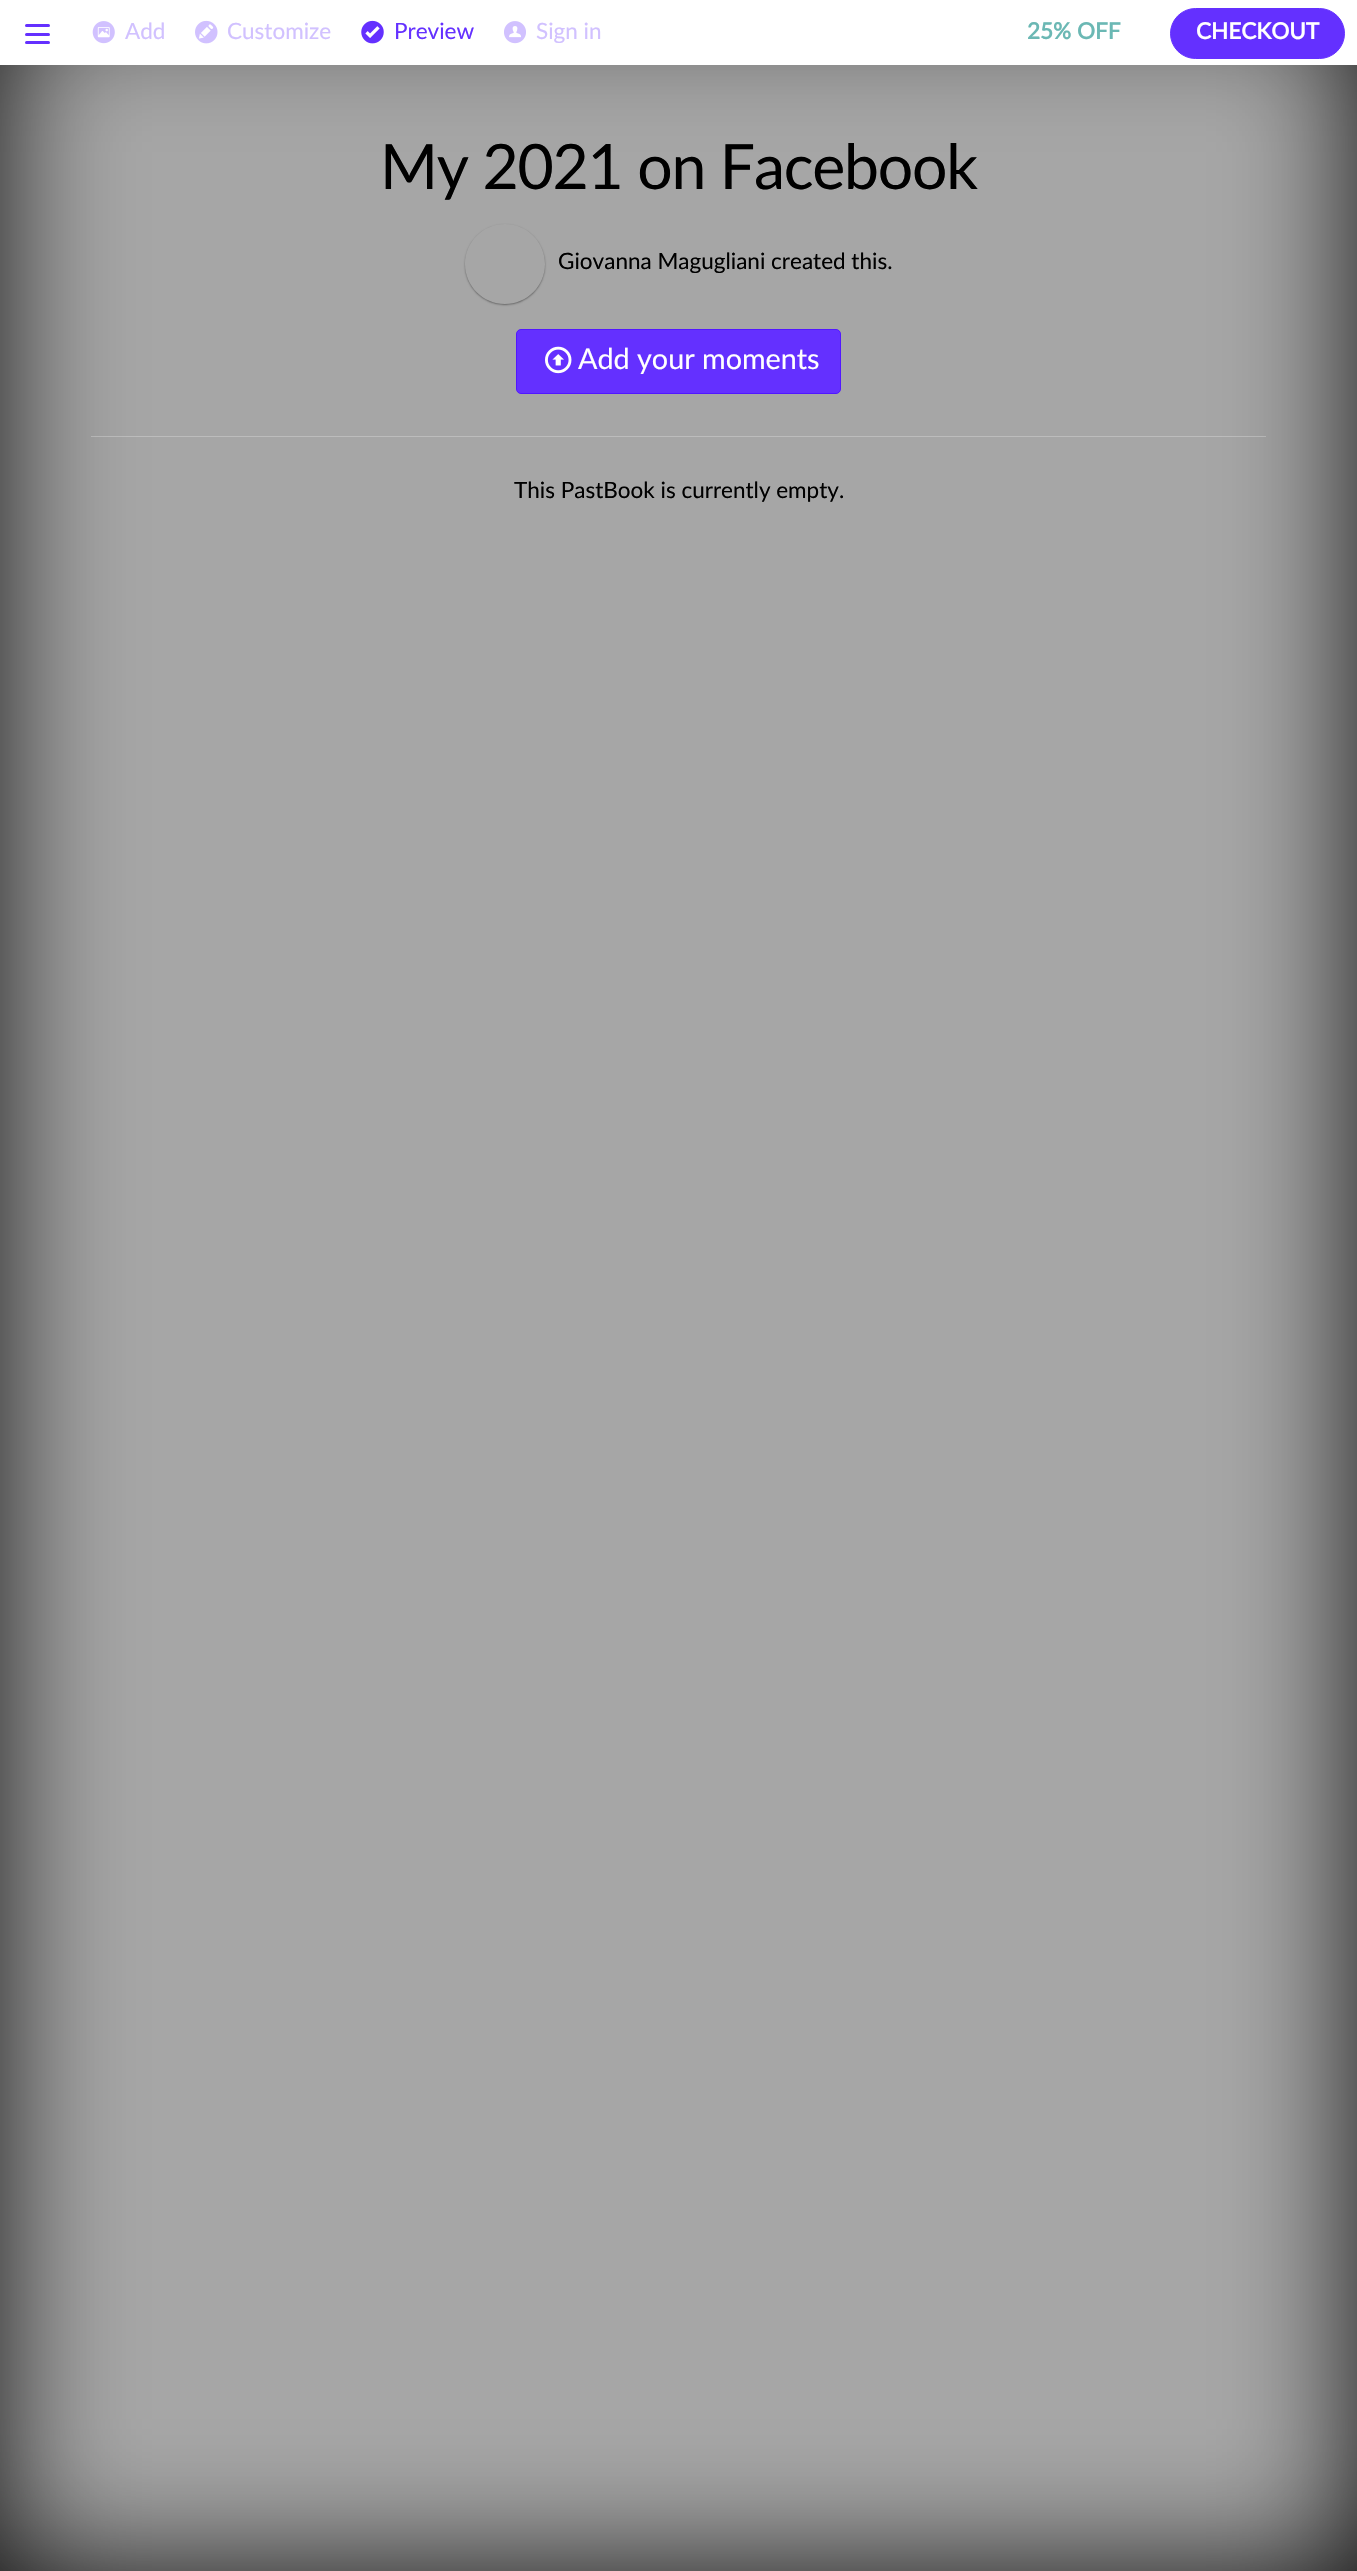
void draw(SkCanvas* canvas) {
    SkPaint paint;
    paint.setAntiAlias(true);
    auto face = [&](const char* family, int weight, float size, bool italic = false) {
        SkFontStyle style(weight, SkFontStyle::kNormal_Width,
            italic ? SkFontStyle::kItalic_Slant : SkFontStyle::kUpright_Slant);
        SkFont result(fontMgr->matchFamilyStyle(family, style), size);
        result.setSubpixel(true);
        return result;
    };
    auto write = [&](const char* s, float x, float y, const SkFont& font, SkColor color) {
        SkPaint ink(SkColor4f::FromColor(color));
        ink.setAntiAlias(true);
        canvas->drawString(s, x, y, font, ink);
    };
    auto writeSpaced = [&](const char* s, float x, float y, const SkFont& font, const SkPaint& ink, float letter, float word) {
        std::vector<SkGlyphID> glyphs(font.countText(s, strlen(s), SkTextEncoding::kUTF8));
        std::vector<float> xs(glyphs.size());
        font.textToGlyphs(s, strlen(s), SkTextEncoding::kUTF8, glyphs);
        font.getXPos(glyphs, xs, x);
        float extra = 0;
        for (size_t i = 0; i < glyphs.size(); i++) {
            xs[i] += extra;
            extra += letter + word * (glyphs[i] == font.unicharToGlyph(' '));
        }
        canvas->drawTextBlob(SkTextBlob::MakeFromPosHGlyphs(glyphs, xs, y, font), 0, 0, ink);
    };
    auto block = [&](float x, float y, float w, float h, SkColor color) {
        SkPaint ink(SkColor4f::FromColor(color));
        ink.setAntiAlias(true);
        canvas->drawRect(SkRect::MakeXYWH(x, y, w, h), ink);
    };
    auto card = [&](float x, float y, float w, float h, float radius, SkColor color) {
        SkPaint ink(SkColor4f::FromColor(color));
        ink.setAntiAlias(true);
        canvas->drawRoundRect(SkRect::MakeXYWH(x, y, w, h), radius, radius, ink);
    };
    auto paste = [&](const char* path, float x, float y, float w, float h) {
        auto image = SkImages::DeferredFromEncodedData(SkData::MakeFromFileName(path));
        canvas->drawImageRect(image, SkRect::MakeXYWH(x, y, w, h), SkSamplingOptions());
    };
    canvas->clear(SkColorSetRGB(17, 17, 17));
    paint.setColor(SkColorSetRGB(166, 166, 166));
    paint.setMaskFilter(SkMaskFilter::MakeBlur(kNormal_SkBlurStyle, 62.5f));
    canvas->drawRect(SkRect::MakeXYWH(0, 0, 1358, 2571), paint);
    paint.setMaskFilter(nullptr);
    block(0, 0, 1357, 65, SK_ColorWHITE);
    card(25, 33, 25, 3, 1.5f, SkColorSetRGB(100, 48, 255));
    card(25, 24, 25, 3, 1.5f, SkColorSetRGB(100, 48, 255));
    card(25, 41, 25, 3, 1.5f, SkColorSetRGB(100, 48, 255));
    paste("pic1.png", 92, 21, 23, 23);
    auto kFont1 = face("Lato", 400, 22.5f);
    write("Add", 125, 39, kFont1, SkColorSetRGB(209, 193, 255));
    paste("pic2.png", 195, 20, 23, 24);
    write("Customize", 227, 39, kFont1, SkColorSetRGB(209, 193, 255));
    paste("pic3.png", 361, 20, 23, 24);
    write("Preview", 394, 39, kFont1, SkColorSetRGB(100, 48, 255));
    paste("pic4.png", 504, 21, 22, 23);
    write("Sign in", 536, 39, kFont1, SkColorSetRGB(209, 193, 255));
    auto kFont2 = face("Lato", 700, 22.5f);
    write("25% OFF", 1027, 39, kFont2, SkColorSetRGB(107, 184, 180));
    paint.setColor(SkColorSetRGB(100, 48, 255));
    canvas->drawRoundRect(SkRect::MakeXYWH(1170.5f, 8.5f, 174, 50), 25, 25, paint);
    paint.setStyle(SkPaint::kStroke_Style);
    paint.setStrokeWidth(1);
    canvas->drawRoundRect(SkRect::MakeXYWH(1170.5f, 8.5f, 174, 50), 25, 25, paint);
    write("CHECKOUT", 1196, 39, kFont2, SK_ColorWHITE);
    auto kFont3 = face("Lato", 400, 62.5f);
    paint.setStyle(SkPaint::kFill_Style);
    paint.setColor(SK_ColorBLACK);
    writeSpaced("My 2021 on Facebook", 380, 189, kFont3, paint, -1.25f, 0);
    canvas->save();
    canvas->clipPath(SkPathBuilder(SkPathFillType::kEvenOdd).moveTo(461, 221).lineTo(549, 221).lineTo(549, 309).lineTo(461, 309).close().moveTo(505, 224).cubicTo(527, 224, 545, 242, 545, 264).cubicTo(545, 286, 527, 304, 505, 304).cubicTo(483, 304, 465, 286, 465, 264).cubicTo(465, 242, 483, 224, 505, 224).close().detach(), true);
    paint.setColor(SkColorSetARGB(102, 0, 0, 0));
    paint.setMaskFilter(SkMaskFilter::MakeBlur(kNormal_SkBlurStyle, 1));
    canvas->drawRoundRect(SkRect::MakeXYWH(465, 225, 80, 80), 40, 40, paint);
    paint.setMaskFilter(nullptr);
    canvas->restore();
    write("Giovanna Magugliani created this.", 558, 269, kFont1, SK_ColorBLACK);
    paint.setColor(SkColorSetRGB(100, 48, 255));
    canvas->drawRoundRect(SkRect::MakeXYWH(516.5f, 329.5f, 324, 64), 4.5f, 4.5f, paint);
    paint.setStyle(SkPaint::kStroke_Style);
    paint.setColor(SkColorSetRGB(81, 23, 255));
    canvas->drawRoundRect(SkRect::MakeXYWH(516.5f, 329.5f, 324, 64), 4.5f, 4.5f, paint);
    paste("pic5.png", 545, 346, 27, 28);
    auto kFont4 = face("Lato", 400, 28.75f);
    write("Add your moments", 578, 369, kFont4, SK_ColorWHITE);
    block(91, 436, 1175, 1, SkColorSetARGB(64, 255, 255, 255));
    write("This PastBook is currently empty.", 514, 498, kFont1, SK_ColorBLACK);
}
